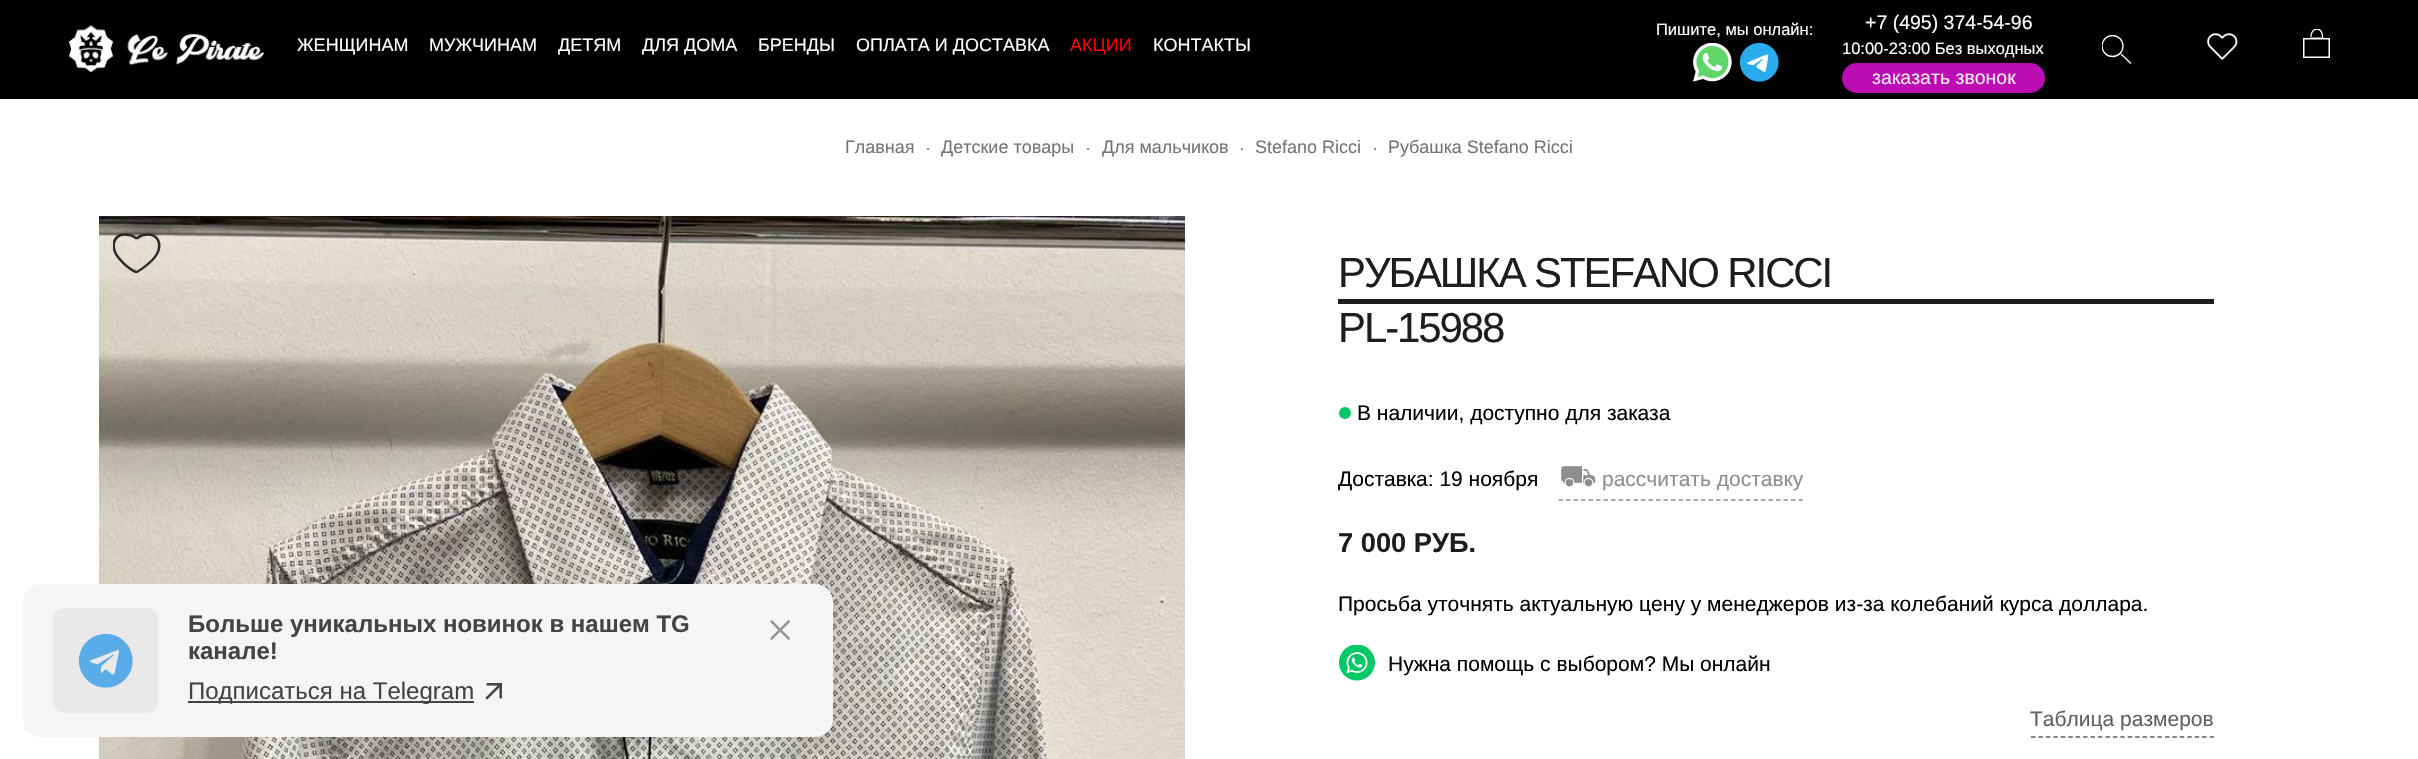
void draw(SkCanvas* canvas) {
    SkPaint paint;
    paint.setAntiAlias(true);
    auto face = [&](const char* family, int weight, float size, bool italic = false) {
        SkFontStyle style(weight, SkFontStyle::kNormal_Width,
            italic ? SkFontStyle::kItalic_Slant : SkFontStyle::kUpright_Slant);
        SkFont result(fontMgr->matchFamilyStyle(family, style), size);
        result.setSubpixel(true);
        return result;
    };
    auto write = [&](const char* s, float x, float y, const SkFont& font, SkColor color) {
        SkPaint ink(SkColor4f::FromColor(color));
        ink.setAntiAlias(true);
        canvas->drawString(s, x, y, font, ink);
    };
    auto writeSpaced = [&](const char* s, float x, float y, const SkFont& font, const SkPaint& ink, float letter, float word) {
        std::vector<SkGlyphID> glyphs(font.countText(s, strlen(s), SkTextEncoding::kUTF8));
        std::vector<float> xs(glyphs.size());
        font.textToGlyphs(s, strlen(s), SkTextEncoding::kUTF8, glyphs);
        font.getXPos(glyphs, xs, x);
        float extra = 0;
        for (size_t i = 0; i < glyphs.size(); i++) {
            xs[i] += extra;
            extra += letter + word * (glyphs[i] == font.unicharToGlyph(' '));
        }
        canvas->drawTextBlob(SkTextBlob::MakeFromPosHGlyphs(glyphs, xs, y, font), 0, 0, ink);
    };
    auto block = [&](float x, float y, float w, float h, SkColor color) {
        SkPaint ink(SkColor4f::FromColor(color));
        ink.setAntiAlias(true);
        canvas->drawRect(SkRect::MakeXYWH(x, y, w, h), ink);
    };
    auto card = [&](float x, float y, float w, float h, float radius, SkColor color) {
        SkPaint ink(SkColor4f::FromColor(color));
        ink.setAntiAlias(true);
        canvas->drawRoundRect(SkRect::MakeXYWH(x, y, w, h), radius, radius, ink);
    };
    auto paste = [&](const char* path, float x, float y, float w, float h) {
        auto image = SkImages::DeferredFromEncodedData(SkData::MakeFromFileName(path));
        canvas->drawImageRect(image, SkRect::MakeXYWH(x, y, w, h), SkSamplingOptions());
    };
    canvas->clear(SK_ColorWHITE);
    block(0, 0, 2418, 99, SK_ColorBLACK);
    paste("pic1.png", 69, 25, 195, 47);
    auto kFont1 = face("Liberation Sans", 400, 18);
    write("ЖЕНЩИНАМ", 297, 51, kFont1, SK_ColorWHITE);
    write("МУЖЧИНАМ", 429, 51, kFont1, SK_ColorWHITE);
    write("ДЕТЯМ", 558, 51, kFont1, SK_ColorWHITE);
    write("ДЛЯ ДОМА", 642, 51, kFont1, SK_ColorWHITE);
    write("БРЕНДЫ", 758, 51, kFont1, SK_ColorWHITE);
    write("ОПЛАТА И ДОСТАВКА", 856, 51, kFont1, SK_ColorWHITE);
    write("АКЦИИ", 1070, 51, kFont1, SkColorSetRGB(255, 0, 0));
    write("КОНТАКТЫ", 1153, 51, kFont1, SK_ColorWHITE);
    auto kFont2 = face("Liberation Sans", 400, 16.5f);
    write("Пишите, мы онлайн:", 1656, 35, kFont2, SK_ColorWHITE);
    paste("pic2.png", 1693, 43, 39, 39);
    paste("pic3.png", 1740, 43, 39, 39);
    auto kFont3 = face("Liberation Sans", 400, 19.5f);
    write("+7 (495) 374-54-96", 1865, 29, kFont3, SK_ColorWHITE);
    write("10:00-23:00 Без выходных", 1842, 54, kFont2, SK_ColorWHITE);
    card(1842, 63, 203, 30, 15, SkColorSetRGB(187, 13, 179));
    write("заказать звонок", 1872, 84, kFont3, SkColorSetRGB(233, 233, 233));
    canvas->save();
    canvas->clipRect(SkRect::MakeXYWH(2102, 35, 30, 30));
    paint.setStyle(SkPaint::kStroke_Style);
    paint.setStrokeWidth(1.3f);
    paint.setColor(SK_ColorWHITE);
    canvas->drawCircle(2112.5f, 46, 10.5f, paint);
    canvas->restore();
    canvas->drawPath(SkPathBuilder().moveTo(2121, 54).lineTo(2131, 63.5f).detach(), paint);
    paste("pic4.png", 2207, 33, 31, 27);
    paste("pic5.png", 2303, 29, 27, 29);
    paste("pic9.png", 99, 216, 1086, 543);
    card(23, 584, 810, 153, 18, SkColorSetRGB(245, 245, 245));
    card(53, 608, 105, 105, 12, SkColorSetRGB(233, 233, 233));
    paste("pic6.png", 78, 633, 55, 55);
    auto kFont4 = face("Liberation Sans", 700, 24);
    write("Больше уникальных новинок в нашем TG", 188, 632, kFont4, SkColorSetRGB(68, 68, 68));
    write("канале!", 188, 659, kFont4, SkColorSetRGB(68, 68, 68));
    block(188, 701, 286, 2, SkColorSetRGB(68, 68, 68));
    auto kFont5 = face("Liberation Sans", 400, 24);
    write("Подписаться на Telegram", 188, 699, kFont5, SkColorSetRGB(68, 68, 68));
    paste("pic7.png", 485, 683, 17, 17);
    paste("pic8.png", 770, 620, 20, 20);
    write("Главная", 845, 153, kFont1, SkColorSetRGB(117, 117, 117));
    write("·", 925, 154, kFont1, SkColorSetRGB(117, 117, 117));
    write("Детские товары", 941, 153, kFont1, SkColorSetRGB(117, 117, 117));
    write("·", 1085, 154, kFont1, SkColorSetRGB(117, 117, 117));
    write("Для мальчиков", 1102, 153, kFont1, SkColorSetRGB(117, 117, 117));
    write("·", 1239, 154, kFont1, SkColorSetRGB(117, 117, 117));
    write("Stefano Ricci", 1255, 153, kFont1, SkColorSetRGB(117, 117, 117));
    write("·", 1372, 154, kFont1, SkColorSetRGB(117, 117, 117));
    write("Рубашка Stefano Ricci", 1388, 153, kFont1, SkColorSetRGB(117, 117, 117));
    paste("pic10.png", 113, 233, 48, 40);
    auto kFont6 = face("Liberation Sans", 400, 42);
    paint.setStyle(SkPaint::kFill_Style);
    paint.setColor(SkColorSetRGB(29, 29, 29));
    writeSpaced("РУБАШКА STEFANO RICCI", 1338, 287, kFont6, paint, -2.1f, 0);
    block(1338, 299, 876, 5, SkColorSetRGB(29, 29, 29));
    writeSpaced("PL-15988", 1338, 342, kFont6, paint, -2.1f, 0);
    paint.setColor(SkColorSetRGB(2, 200, 103));
    canvas->drawCircle(1345, 413, 6, paint);
    auto kFont7 = face("Liberation Sans", 400, 21);
    write("В наличии, доступно для заказа", 1357, 420, kFont7, SK_ColorBLACK);
    write("Доставка: 19 ноября", 1338, 486, kFont7, SK_ColorBLACK);
    paint.setStyle(SkPaint::kStroke_Style);
    paint.setStrokeWidth(1.5f);
    paint.setColor(SkColorSetRGB(143, 141, 141));
    paint.setPathEffect(SkDashPathEffect::Make({{4.5f, 3}}, 0));
    canvas->drawPath(SkPathBuilder().moveTo(1558.5f, 500).lineTo(1803, 500).detach(), paint);
    paint.setPathEffect(nullptr);
    auto kFont8 = face("STIX Two Math", 400, 30);
    write("⛟", 1559, 486, kFont8, SkColorSetRGB(143, 141, 141));
    write("рассчитать доставку", 1602, 486, kFont7, SkColorSetRGB(143, 141, 141));
    auto kFont9 = face("Liberation Sans", 700, 27.25f);
    write("7 000 РУБ.", 1338, 552, kFont9, SkColorSetRGB(29, 29, 29));
    write("Просьба уточнять актуальную цену у менеджеров из-за колебаний курса доллара.", 1338, 611, kFont7, SK_ColorBLACK);
    paste("pic11.png", 1339, 645, 36, 36);
    write("Нужна помощь с выбором? Мы онлайн", 1388, 671, kFont7, SK_ColorBLACK);
    paint.setColor(SkColorSetRGB(97, 97, 97));
    paint.setPathEffect(SkDashPathEffect::Make({{4.5f, 2.94f}}, 0));
    canvas->drawPath(SkPathBuilder().moveTo(2031, 737).lineTo(2214, 737).detach(), paint);
    paint.setPathEffect(nullptr);
    write("Таблица размеров", 2030, 726, kFont7, SkColorSetRGB(97, 97, 97));
}
